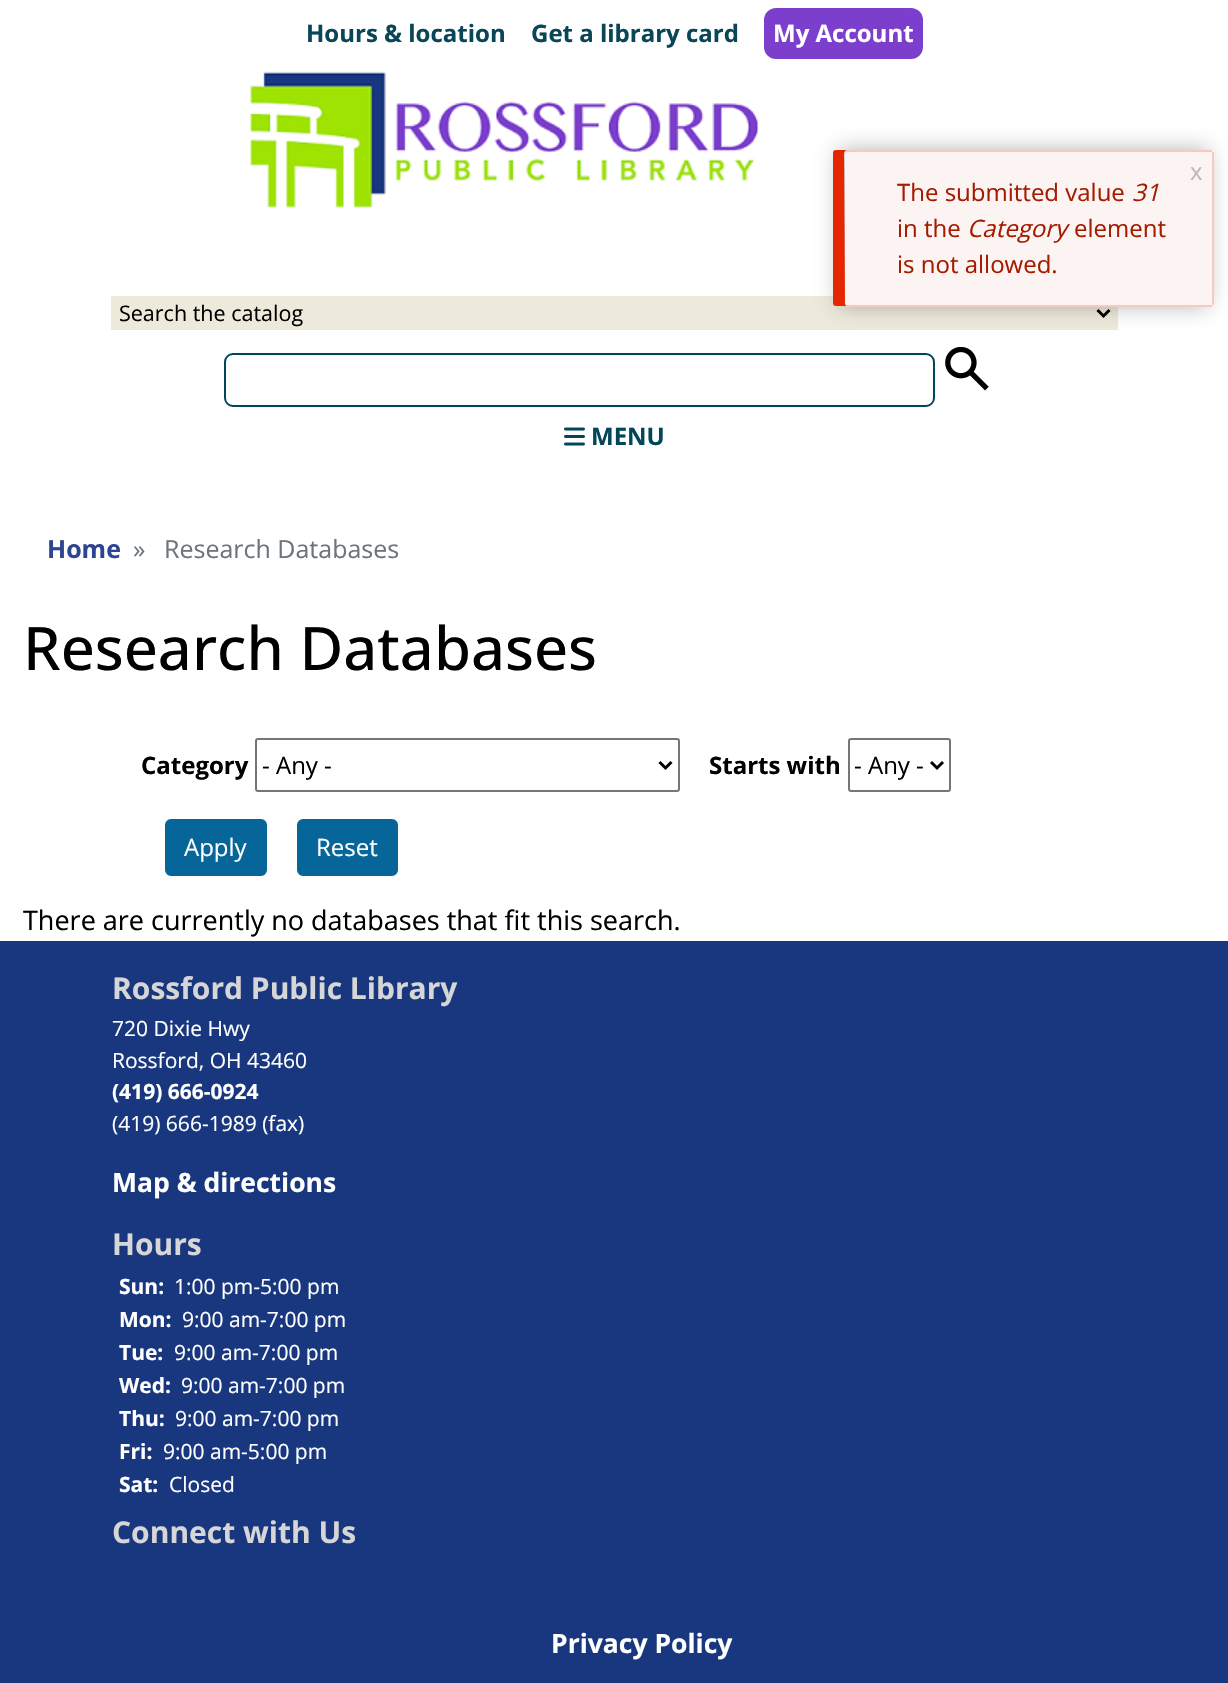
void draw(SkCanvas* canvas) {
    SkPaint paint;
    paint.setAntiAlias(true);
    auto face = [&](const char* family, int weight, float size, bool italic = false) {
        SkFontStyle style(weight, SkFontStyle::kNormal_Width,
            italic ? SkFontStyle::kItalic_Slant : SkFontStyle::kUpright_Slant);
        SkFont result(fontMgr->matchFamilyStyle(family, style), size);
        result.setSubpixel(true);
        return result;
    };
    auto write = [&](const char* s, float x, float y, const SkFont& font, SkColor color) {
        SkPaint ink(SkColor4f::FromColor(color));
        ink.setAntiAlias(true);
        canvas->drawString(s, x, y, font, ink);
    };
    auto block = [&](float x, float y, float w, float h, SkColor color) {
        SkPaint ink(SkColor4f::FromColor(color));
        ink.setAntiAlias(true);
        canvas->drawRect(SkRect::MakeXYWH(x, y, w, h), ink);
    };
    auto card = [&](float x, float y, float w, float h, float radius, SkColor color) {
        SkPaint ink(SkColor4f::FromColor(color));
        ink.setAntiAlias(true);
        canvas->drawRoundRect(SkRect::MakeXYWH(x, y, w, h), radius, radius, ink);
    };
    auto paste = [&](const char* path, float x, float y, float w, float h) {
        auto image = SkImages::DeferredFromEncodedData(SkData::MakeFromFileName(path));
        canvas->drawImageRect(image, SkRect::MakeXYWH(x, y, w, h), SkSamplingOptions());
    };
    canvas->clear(SK_ColorWHITE);
    auto kFont1 = face("Open Sans", 700, 24);
    write("Hours & location", 306, 42, kFont1, SkColorSetRGB(8, 70, 88));
    write("Get a library card", 531, 42, kFont1, SkColorSetRGB(8, 70, 88));
    card(764, 8, 159, 51, 12, SkColorSetRGB(124, 63, 205));
    write("My Account", 773, 42, kFont1, SK_ColorWHITE);
    paste("pic1.png", 250, 71, 509, 137);
    block(111, 296, 1007, 34, SkColorSetRGB(237, 234, 220));
    paint.setStyle(SkPaint::kStroke_Style);
    paint.setStrokeWidth(3);
    paint.setColor(SK_ColorBLACK);
    canvas->drawPath(SkPathBuilder().moveTo(1097.5f, 310).lineTo(1103.5f, 316).lineTo(1109.5f, 310).detach(), paint);
    auto kFont2 = face("Open Sans", 400, 21.5f);
    write("Search the catalog", 119, 321, kFont2, SK_ColorBLACK);
    paint.setStrokeWidth(2);
    paint.setColor(SkColorSetRGB(2, 70, 89));
    canvas->drawRoundRect(SkRect::MakeXYWH(225, 354, 709, 52), 8, 8, paint);
    paste("pic2.png", 945, 347, 44, 44);
    paste("pic3.png", 564, 427, 21, 19);
    write("MENU", 591, 445, kFont1, SkColorSetRGB(2, 70, 89));
    paint.setStyle(SkPaint::kFill_Style);
    paint.setColor(SkColorSetARGB(77, 0, 0, 0));
    paint.setMaskFilter(SkMaskFilter::MakeBlur(kNormal_SkBlurStyle, 11));
    canvas->drawRoundRect(SkRect::MakeXYWH(839, 150, 369, 156), 3, 3, paint);
    paint.setMaskFilter(nullptr);
    paint.setColor(SkColorSetRGB(230, 38, 0));
    canvas->drawPath(SkPathBuilder().moveTo(836, 150).cubicTo(834, 150, 833, 151, 833, 153).lineTo(833, 303).cubicTo(833, 305, 834, 306, 836, 306).lineTo(848, 306).lineTo(846, 305).lineTo(845, 304).lineTo(844, 153).cubicTo(845, 151, 846, 150, 848, 150).close().detach(), paint);
    card(845, 150, 369, 156, 3, SkColorSetRGB(252, 244, 242));
    block(846, 150, 366, 2, SkColorSetRGB(249, 201, 191));
    block(1212, 152, 2, 153, SkColorSetRGB(249, 201, 191));
    block(846, 305, 366, 2, SkColorSetRGB(249, 201, 191));
    auto kFont3 = face("Open Sans", 400, 24);
    write("x", 1190, 180, kFont3, SkColorSetRGB(189, 183, 182));
    write("The submitted value", 897, 201, kFont3, SkColorSetRGB(165, 27, 0));
    auto kFont4 = face("Open Sans", 400, 24, true);
    write("31", 1132, 201, kFont4, SkColorSetRGB(165, 27, 0));
    write("in the", 897, 237, kFont3, SkColorSetRGB(165, 27, 0));
    write("Category", 967, 237, kFont4, SkColorSetRGB(165, 27, 0));
    write("element", 1074, 237, kFont3, SkColorSetRGB(165, 27, 0));
    write("is not allowed.", 897, 273, kFont3, SkColorSetRGB(165, 27, 0));
    auto kFont5 = face("Open Sans", 700, 25);
    write("Home", 47, 558, kFont5, SkColorSetRGB(43, 69, 147));
    auto kFont6 = face("Open Sans", 400, 25);
    write("»", 133, 558, kFont6, SkColorSetRGB(108, 117, 125));
    write("Research Databases", 164, 558, kFont6, SkColorSetRGB(108, 117, 125));
    auto kFont7 = face("Open Sans", 500, 60);
    write("Research Databases", 23, 670, kFont7, SK_ColorBLACK);
    write("Category", 141, 774, kFont1, SK_ColorBLACK);
    paint.setStyle(SkPaint::kStroke_Style);
    paint.setColor(SkColorSetRGB(118, 118, 118));
    canvas->drawRoundRect(SkRect::MakeXYWH(256, 739, 423, 52), 2, 2, paint);
    paint.setStrokeWidth(3);
    paint.setColor(SK_ColorBLACK);
    canvas->drawPath(SkPathBuilder().moveTo(659.5f, 762).lineTo(665.5f, 768).lineTo(671.5f, 762).detach(), paint);
    write("- Any -", 262, 774, kFont3, SK_ColorBLACK);
    write("Starts with", 709, 774, kFont1, SK_ColorBLACK);
    paint.setStrokeWidth(2);
    paint.setColor(SkColorSetRGB(118, 118, 118));
    canvas->drawRoundRect(SkRect::MakeXYWH(849, 739, 101, 52), 2, 2, paint);
    paint.setStrokeWidth(3);
    paint.setColor(SK_ColorBLACK);
    canvas->drawPath(SkPathBuilder().moveTo(931, 762).lineTo(937, 768).lineTo(943, 762).detach(), paint);
    write("- Any -", 854, 774, kFont3, SK_ColorBLACK);
    paint.setStyle(SkPaint::kFill_Style);
    paint.setColor(SkColorSetRGB(6, 102, 153));
    canvas->drawRoundRect(SkRect::MakeXYWH(166, 820, 100, 55), 5, 5, paint);
    paint.setStyle(SkPaint::kStroke_Style);
    paint.setStrokeWidth(2);
    canvas->drawRoundRect(SkRect::MakeXYWH(166, 820, 100, 55), 5, 5, paint);
    write("Apply", 184, 856, kFont3, SK_ColorWHITE);
    paint.setStyle(SkPaint::kFill_Style);
    canvas->drawRoundRect(SkRect::MakeXYWH(298, 820, 99, 55), 5, 5, paint);
    paint.setStyle(SkPaint::kStroke_Style);
    canvas->drawRoundRect(SkRect::MakeXYWH(298, 820, 99, 55), 5, 5, paint);
    write("Reset", 316, 856, kFont3, SK_ColorWHITE);
    auto kFont8 = face("Open Sans", 400, 27);
    write("There are currently no databases that fit this search.", 23, 930, kFont8, SK_ColorBLACK);
    block(0, 941, 1228, 742, SkColorSetRGB(24, 55, 126));
    auto kFont9 = face("Open Sans", 700, 30);
    write("Rossford Public Library", 112, 999, kFont9, SkColorSetRGB(214, 214, 214));
    auto kFont10 = face("Open Sans", 400, 21);
    write("720 Dixie Hwy", 112, 1036, kFont10, SK_ColorWHITE);
    write("Rossford, OH 43460", 112, 1068, kFont10, SK_ColorWHITE);
    auto kFont11 = face("Open Sans", 700, 21);
    write("(419) 666-0924", 112, 1099, kFont11, SK_ColorWHITE);
    write("(419) 666-1989 (fax)", 112, 1131, kFont10, SK_ColorWHITE);
    auto kFont12 = face("Open Sans", 700, 26.5f);
    write("Map & directions", 112, 1192, kFont12, SK_ColorWHITE);
    write("Hours", 112, 1255, kFont9, SkColorSetRGB(214, 214, 214));
    write("Sun:", 119, 1294, kFont11, SK_ColorWHITE);
    write("1:00 pm-5:00 pm", 174, 1294, kFont10, SK_ColorWHITE);
    write("Mon:", 119, 1327, kFont11, SK_ColorWHITE);
    write("9:00 am-7:00 pm", 182, 1327, kFont10, SK_ColorWHITE);
    write("Tue:", 119, 1360, kFont11, SK_ColorWHITE);
    write("9:00 am-7:00 pm", 174, 1360, kFont10, SK_ColorWHITE);
    write("Wed:", 119, 1393, kFont11, SK_ColorWHITE);
    write("9:00 am-7:00 pm", 181, 1393, kFont10, SK_ColorWHITE);
    write("Thu:", 119, 1426, kFont11, SK_ColorWHITE);
    write("9:00 am-7:00 pm", 175, 1426, kFont10, SK_ColorWHITE);
    write("Fri:", 119, 1459, kFont11, SK_ColorWHITE);
    write("9:00 am-5:00 pm", 163, 1459, kFont10, SK_ColorWHITE);
    write("Sat:", 119, 1492, kFont11, SK_ColorWHITE);
    write("Closed", 169, 1492, kFont10, SK_ColorWHITE);
    write("Connect with Us", 112, 1543, kFont9, SkColorSetRGB(214, 214, 214));
    write("Privacy Policy", 551, 1653, kFont12, SK_ColorWHITE);
}
